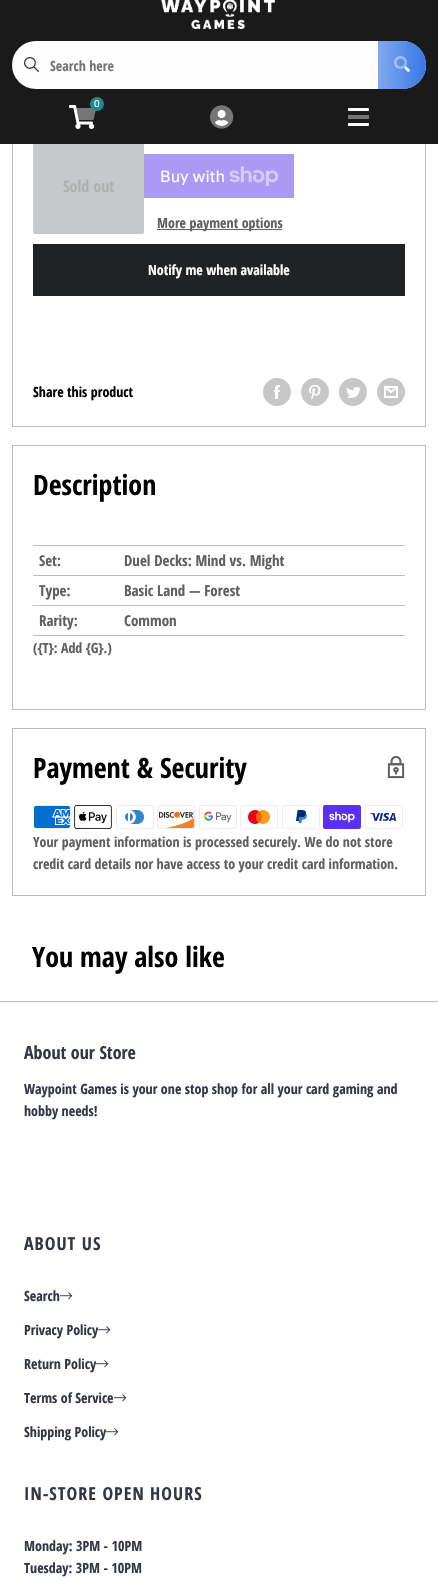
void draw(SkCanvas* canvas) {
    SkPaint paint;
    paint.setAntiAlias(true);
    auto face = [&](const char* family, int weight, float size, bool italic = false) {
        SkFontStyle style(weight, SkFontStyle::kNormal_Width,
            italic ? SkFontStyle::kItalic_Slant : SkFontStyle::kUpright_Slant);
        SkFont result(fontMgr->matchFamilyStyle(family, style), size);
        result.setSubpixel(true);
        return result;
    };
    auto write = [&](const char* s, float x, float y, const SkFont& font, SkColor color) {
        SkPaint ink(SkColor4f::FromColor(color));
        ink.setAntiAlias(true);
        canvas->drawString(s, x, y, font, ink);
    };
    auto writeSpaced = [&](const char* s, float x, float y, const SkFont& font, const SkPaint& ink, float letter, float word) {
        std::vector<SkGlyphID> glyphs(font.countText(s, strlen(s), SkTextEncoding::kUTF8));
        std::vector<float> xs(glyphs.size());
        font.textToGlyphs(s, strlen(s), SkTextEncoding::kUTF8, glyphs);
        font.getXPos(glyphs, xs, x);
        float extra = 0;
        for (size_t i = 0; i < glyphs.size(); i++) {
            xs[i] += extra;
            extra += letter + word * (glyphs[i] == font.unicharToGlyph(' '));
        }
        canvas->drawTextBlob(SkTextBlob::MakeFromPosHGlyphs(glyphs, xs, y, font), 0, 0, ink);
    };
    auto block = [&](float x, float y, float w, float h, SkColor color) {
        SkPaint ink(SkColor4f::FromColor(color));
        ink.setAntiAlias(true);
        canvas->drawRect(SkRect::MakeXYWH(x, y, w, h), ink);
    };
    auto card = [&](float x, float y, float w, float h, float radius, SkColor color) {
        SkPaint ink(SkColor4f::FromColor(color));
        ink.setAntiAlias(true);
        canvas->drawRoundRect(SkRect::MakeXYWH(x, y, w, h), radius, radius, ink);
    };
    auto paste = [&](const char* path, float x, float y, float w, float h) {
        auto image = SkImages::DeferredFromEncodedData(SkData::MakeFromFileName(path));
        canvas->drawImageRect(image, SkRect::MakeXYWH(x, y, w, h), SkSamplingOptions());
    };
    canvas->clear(SK_ColorWHITE);
    paint.setStyle(SkPaint::kStroke_Style);
    paint.setStrokeWidth(1);
    paint.setColor(SkColorSetRGB(189, 189, 189));
    canvas->drawRect(SkRect::MakeXYWH(12.5f, -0.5f, 413, 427), paint);
    paint.setStyle(SkPaint::kFill_Style);
    paint.setColor(SkColorSetRGB(197, 201, 203));
    canvas->drawRoundRect(SkRect::MakeXYWH(33.5f, 138.5f, 110, 95), 1.5f, 1.5f, paint);
    paint.setStyle(SkPaint::kStroke_Style);
    canvas->drawRoundRect(SkRect::MakeXYWH(33.5f, 138.5f, 110, 95), 1.5f, 1.5f, paint);
    block(0, 0, 438, 144, SkColorSetRGB(26, 26, 26));
    paste("pic1.png", 161, 0, 114, 29);
    card(12, 41, 414, 48, 24, SkColorSetRGB(254, 254, 254));
    paste("pic2.png", 24, 57, 15, 15);
    auto kFont1 = face("Open Sans Condensed", 700, 14);
    write("Search here", 50, 71, kFont1, SkColorSetRGB(117, 117, 117));
    paint.setStyle(SkPaint::kFill_Style);
    {
        const SkColor colors[] = {SkColorSetRGB(53, 118, 229), SkColorSetRGB(130, 170, 239)};
        const float stops[] = {0, 1};
        const SkPoint ends[] = {{427, 66}, {377, 64}};
        paint.setShader(SkGradientShader::MakeLinear(ends, colors, stops, 2, SkTileMode::kClamp));
        paint.setAlpha(255);
    }
    canvas->drawPath(SkPathBuilder().moveTo(378, 41).lineTo(402, 41).cubicTo(415.5f, 41, 426, 51.5f, 426, 65).cubicTo(426, 78.5f, 415.5f, 89, 402, 89).lineTo(378, 89).close().detach(), paint);
    paste("pic4.png", 404, 66, 6, 6);
    paste("pic3.png", 394, 56, 13, 13);
    paste("pic5.png", 69, 105, 26, 24);
    paste("pic6.png", 76, 108, 20, 12);
    paint.setShader(nullptr);
    paint.setColor(SkColorSetRGB(37, 135, 140));
    canvas->drawCircle(97, 104, 7, paint);
    auto kFont2 = face("Liberation Sans", 400, 10);
    write("0", 94, 107, kFont2, SK_ColorWHITE);
    paste("pic8.png", 214, 109, 15, 17);
    paste("pic7.png", 210, 105, 24, 24);
    paste("pic9.png", 348, 108, 21, 18);
    block(348, 115, 21, 4, SkColorSetRGB(117, 117, 117));
    auto kFont3 = face("Open Sans Condensed", 700, 16);
    write("Sold out", 63, 192, kFont3, SkColorSetRGB(175, 175, 175));
    block(144, 154, 150, 44, SkColorSetRGB(170, 153, 245));
    auto kFont4 = face("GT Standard", 400, 16);
    write("Buy with", 160, 182, kFont4, SK_ColorWHITE);
    paste("pic10.png", 229, 166, 50, 20);
    block(157, 229, 125, 1, SkColorSetRGB(95, 95, 95));
    write("More payment options", 157, 228, kFont1, SkColorSetRGB(95, 95, 95));
    block(33, 244, 372, 52, SkColorSetRGB(32, 34, 35));
    write("Notify me when available", 148, 275, kFont1, SK_ColorWHITE);
    write("Share this product", 33, 397, kFont1, SK_ColorBLACK);
    paste("pic11.png", 263, 378, 28, 28);
    paste("pic12.png", 301, 378, 28, 28);
    paste("pic13.png", 339, 378, 28, 28);
    paste("pic14.png", 377, 378, 28, 28);
    paint.setStyle(SkPaint::kStroke_Style);
    paint.setColor(SkColorSetRGB(189, 189, 189));
    canvas->drawRect(SkRect::MakeXYWH(12.5f, 445.5f, 413, 264), paint);
    auto kFont5 = face("Open Sans Condensed", 700, 28);
    write("Description", 33, 495, kFont5, SK_ColorBLACK);
    block(33, 545, 372, 1, SkColorSetRGB(189, 189, 189));
    auto kFont6 = face("Open Sans Condensed", 700, 15);
    write("Set:", 39, 566, kFont6, SkColorSetRGB(95, 95, 95));
    write("Duel Decks: Mind vs. Might", 124, 566, kFont6, SkColorSetRGB(95, 95, 95));
    block(33, 575, 372, 1, SkColorSetRGB(189, 189, 189));
    write("Type:", 39, 596, kFont6, SkColorSetRGB(95, 95, 95));
    write("Basic Land — Forest", 124, 596, kFont6, SkColorSetRGB(95, 95, 95));
    block(33, 605, 372, 1, SkColorSetRGB(189, 189, 189));
    block(33, 635, 372, 1, SkColorSetRGB(189, 189, 189));
    write("Rarity:", 39, 626, kFont6, SkColorSetRGB(95, 95, 95));
    write("Common", 124, 626, kFont6, SkColorSetRGB(95, 95, 95));
    write("({T}: Add {G}.)", 33, 653, kFont1, SkColorSetRGB(95, 95, 95));
    canvas->drawRect(SkRect::MakeXYWH(12.5f, 728.5f, 413, 167), paint);
    write("Payment & Security", 33, 778, kFont5, SK_ColorBLACK);
    paste("pic15.png", 387, 755, 18, 24);
    paste("pic16.png", 33, 805, 38, 24);
    paste("pic17.png", 74, 805, 38, 24);
    paste("pic18.png", 116, 805, 38, 24);
    paste("pic19.png", 157, 805, 38, 24);
    paste("pic20.png", 199, 805, 38, 24);
    paste("pic21.png", 240, 805, 38, 24);
    paste("pic22.png", 282, 805, 38, 24);
    paste("pic23.png", 323, 805, 38, 24);
    paste("pic24.png", 365, 805, 38, 24);
    write("Your payment information is processed securely. We do not store", 33, 847, kFont1, SkColorSetRGB(95, 95, 95));
    write("credit card details nor have access to your credit card information.", 33, 869, kFont1, SkColorSetRGB(95, 95, 95));
    write("You may also like", 32, 967, kFont5, SK_ColorBLACK);
    block(0, 1001, 438, 1, SkColorSetRGB(189, 189, 189));
    auto kFont7 = face("Open Sans Condensed", 700, 18);
    write("About our Store", 24, 1059, kFont7, SkColorSetRGB(51, 55, 69));
    write("Waypoint Games is your one stop shop for all your card gaming and", 24, 1094, kFont1, SkColorSetRGB(51, 55, 69));
    write("hobby needs!", 24, 1116, kFont1, SkColorSetRGB(51, 55, 69));
    paint.setStyle(SkPaint::kFill_Style);
    paint.setColor(SkColorSetRGB(51, 55, 69));
    writeSpaced("ABOUT US", 24, 1250, kFont7, paint, 1, 0);
    write("Search", 24, 1301, kFont1, SkColorSetRGB(51, 55, 69));
    paste("pic25.png", 60, 1292, 13, 8);
    write("Privacy Policy", 24, 1335, kFont1, SkColorSetRGB(51, 55, 69));
    paste("pic26.png", 98, 1326, 13, 8);
    write("Return Policy", 24, 1369, kFont1, SkColorSetRGB(51, 55, 69));
    paste("pic27.png", 96, 1360, 13, 8);
    write("Terms of Service", 24, 1403, kFont1, SkColorSetRGB(51, 55, 69));
    paste("pic25.png", 114, 1394, 13, 8);
    write("Shipping Policy", 24, 1437, kFont1, SkColorSetRGB(51, 55, 69));
    paste("pic28.png", 106, 1428, 13, 8);
    writeSpaced("IN-STORE OPEN HOURS", 24, 1500, kFont7, paint, 1, 0);
    write("Monday: 3PM - 10PM", 24, 1551, kFont1, SkColorSetRGB(51, 55, 69));
    write("Tuesday: 3PM - 10PM", 24, 1573, kFont1, SkColorSetRGB(51, 55, 69));
}
